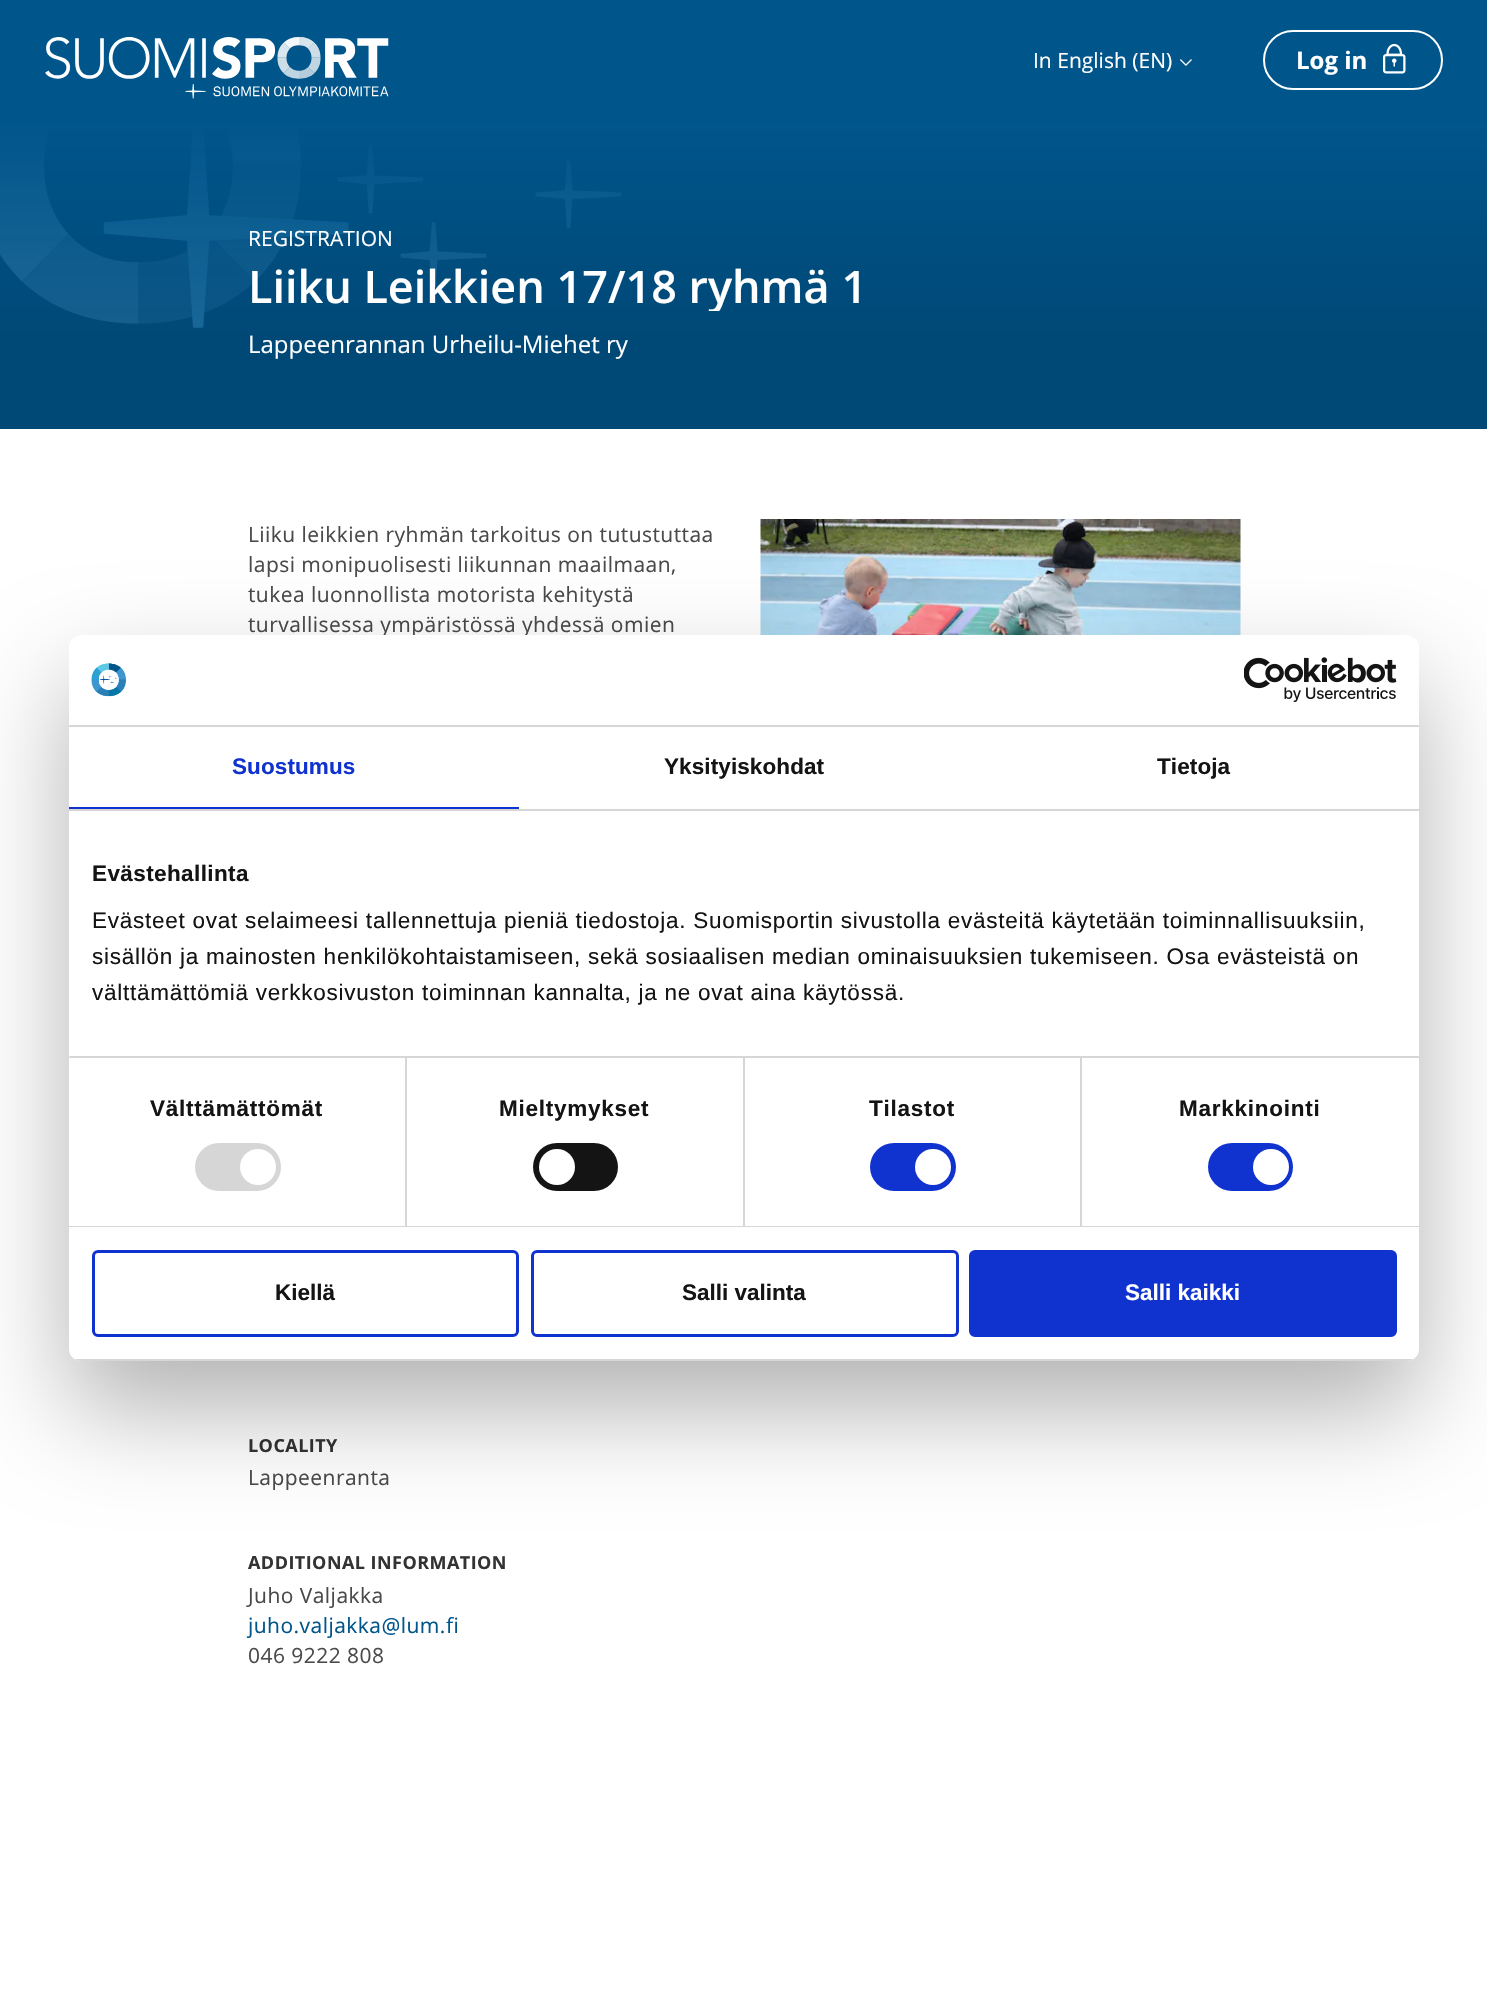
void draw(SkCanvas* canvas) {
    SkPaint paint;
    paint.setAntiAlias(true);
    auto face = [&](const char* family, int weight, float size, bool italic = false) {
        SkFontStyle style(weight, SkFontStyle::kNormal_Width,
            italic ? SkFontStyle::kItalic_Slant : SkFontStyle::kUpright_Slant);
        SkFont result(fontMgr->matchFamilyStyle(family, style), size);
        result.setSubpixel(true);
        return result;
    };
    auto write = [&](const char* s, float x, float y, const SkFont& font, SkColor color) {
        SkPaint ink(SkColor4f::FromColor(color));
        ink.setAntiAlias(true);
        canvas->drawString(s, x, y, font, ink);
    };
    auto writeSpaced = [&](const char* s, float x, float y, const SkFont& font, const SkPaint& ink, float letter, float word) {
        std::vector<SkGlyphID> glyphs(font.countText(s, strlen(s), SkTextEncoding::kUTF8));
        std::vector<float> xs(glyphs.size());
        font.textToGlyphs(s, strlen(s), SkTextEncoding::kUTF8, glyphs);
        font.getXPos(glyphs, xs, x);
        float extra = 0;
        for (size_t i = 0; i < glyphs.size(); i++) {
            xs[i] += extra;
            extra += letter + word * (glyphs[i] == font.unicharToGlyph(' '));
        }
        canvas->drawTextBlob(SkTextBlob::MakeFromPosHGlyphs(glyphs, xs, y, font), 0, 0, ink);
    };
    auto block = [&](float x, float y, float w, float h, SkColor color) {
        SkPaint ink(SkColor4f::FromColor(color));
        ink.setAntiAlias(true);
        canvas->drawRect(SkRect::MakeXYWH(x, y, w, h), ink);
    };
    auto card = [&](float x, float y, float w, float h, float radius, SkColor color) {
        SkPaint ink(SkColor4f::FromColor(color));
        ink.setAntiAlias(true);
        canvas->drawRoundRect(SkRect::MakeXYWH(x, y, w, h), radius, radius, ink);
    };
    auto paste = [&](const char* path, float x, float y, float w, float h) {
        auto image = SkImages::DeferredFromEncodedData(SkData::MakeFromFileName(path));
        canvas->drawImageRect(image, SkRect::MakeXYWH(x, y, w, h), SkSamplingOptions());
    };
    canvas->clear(SK_ColorWHITE);
    block(0, 0, 1487, 120, SkColorSetRGB(0, 85, 139));
    paste("pic1.png", 45, 37, 344, 62);
    auto kFont1 = face("Open Sans", 400, 21);
    write("In English (EN)", 1033, 68, kFont1, SK_ColorWHITE);
    paste("pic2.png", 1180, 59, 12, 7);
    paint.setStyle(SkPaint::kStroke_Style);
    paint.setStrokeWidth(2);
    paint.setColor(SK_ColorWHITE);
    canvas->drawRoundRect(SkRect::MakeXYWH(1264, 31, 178, 58), 29, 29, paint);
    auto kFont2 = face("Open Sans", 700, 24);
    write("Log in", 1296, 69, kFont2, SK_ColorWHITE);
    paste("pic3.png", 1383, 44, 23, 30);
    block(0, 129, 1487, 300, SK_ColorBLACK);
    paste("pic4.png", 0, 129, 622, 199);
    paint.setStyle(SkPaint::kFill_Style);
    {
        const SkColor colors[] = {SkColorSetRGB(0, 85, 139), SkColorSetARGB(217, 0, 85, 139)};
        const float stops[] = {0, 0.73f};
        const SkPoint ends[] = {{744, 120}, {744, 429}};
        paint.setShader(SkGradientShader::MakeLinear(ends, colors, stops, 2, SkTileMode::kClamp));
        paint.setAlpha(255);
    }
    canvas->drawRect(SkRect::MakeXYWH(0, 120, 1487, 309), paint);
    write("REGISTRATION", 248, 246, kFont1, SK_ColorWHITE);
    canvas->save();
    canvas->clipRect(SkRect::MakeXYWH(248, 261, 993, 50));
    auto kFont3 = face("Open Sans", 600, 45);
    write("Liiku Leikkien 17/18 ryhmä 1", 248, 303, kFont3, SK_ColorWHITE);
    canvas->restore();
    auto kFont4 = face("Open Sans", 400, 24);
    write("Lappeenrannan Urheilu-Miehet ry", 248, 353, kFont4, SK_ColorWHITE);
    paint.setShader(nullptr);
    paint.setColor(SkColorSetRGB(74, 74, 74));
    writeSpaced("Liiku leikkien ryhmän tarkoitus on tutustuttaa", 248, 542, kFont1, paint, 0.45f, 0);
    writeSpaced("lapsi monipuolisesti liikunnan maailmaan,", 248, 572, kFont1, paint, 0.45f, 0);
    writeSpaced("tukea luonnollista motorista kehitystä", 248, 602, kFont1, paint, 0.45f, 0);
    writeSpaced("turvallisessa ympäristössä yhdessä omien", 248, 632, kFont1, paint, 0.45f, 0);
    auto kFont5 = face("Open Sans", 700, 18);
    paint.setColor(SkColorSetRGB(51, 51, 51));
    writeSpaced("LOCALITY", 248, 1452, kFont5, paint, 0.45f, 0);
    paint.setColor(SkColorSetRGB(74, 74, 74));
    writeSpaced("Lappeenranta", 248, 1485, kFont1, paint, 0.45f, 0);
    paint.setColor(SkColorSetRGB(51, 51, 51));
    writeSpaced("ADDITIONAL INFORMATION", 248, 1569, kFont5, paint, 0.45f, 0);
    paint.setColor(SkColorSetRGB(74, 74, 74));
    writeSpaced("Juho Valjakka", 248, 1603, kFont1, paint, 0.45f, 0);
    paint.setColor(SkColorSetRGB(0, 85, 139));
    writeSpaced("juho.valjakka@lum.fi", 248, 1633, kFont1, paint, 0.45f, 0);
    paint.setColor(SkColorSetRGB(74, 74, 74));
    writeSpaced("046 9222 808", 248, 1663, kFont1, paint, 0.45f, 0);
    paste("pic5.png", 760, 519, 481, 116);
    paint.setColor(SkColorSetARGB(77, 0, 0, 0));
    paint.setMaskFilter(SkMaskFilter::MakeBlur(kNormal_SkBlurStyle, 51));
    canvas->drawRoundRect(SkRect::MakeXYWH(69, 683, 1350, 726), 12, 12, paint);
    paint.setMaskFilter(nullptr);
    card(69, 635, 1350, 726, 12, SK_ColorWHITE);
    block(69, 725, 1350, 2, SkColorSetRGB(214, 214, 214));
    paste("pic6.png", 91, 663, 36, 34);
    paste("pic7.png", 1244, 657, 153, 45);
    block(69, 809, 1350, 2, SkColorSetRGB(214, 214, 214));
    block(69, 807, 450, 2, SkColorSetRGB(16, 50, 207));
    auto kFont6 = face("Liberation Sans", 700, 22.5f);
    paint.setColor(SkColorSetRGB(16, 50, 207));
    writeSpaced("Suostumus", 232, 774, kFont6, paint, 0.1f, 0);
    paint.setColor(SkColorSetRGB(20, 20, 20));
    writeSpaced("Yksityiskohdat", 664, 774, kFont6, paint, 0.1f, 0);
    writeSpaced("Tietoja", 1157, 774, kFont6, paint, 0.1f, 0);
    block(69, 1056, 1350, 2, SkColorSetRGB(214, 214, 214));
    writeSpaced("Evästehallinta", 92, 881, kFont6, paint, 0.4f, 0);
    auto kFont7 = face("Liberation Sans", 400, 22.5f);
    writeSpaced("Evästeet ovat selaimeesi tallennettuja pieniä tiedostoja. Suomisportin sivustolla evästeitä käytetään toiminnallisuuksiin,", 92, 928, kFont7, paint, 0.75f, 0);
    writeSpaced("sisällön ja mainosten henkilökohtaistamiseen, sekä sosiaalisen median ominaisuuksien tukemiseen. Osa evästeistä on", 92, 964, kFont7, paint, 0.75f, 0);
    writeSpaced("välttämättömiä verkkosivuston toiminnan kannalta, ja ne ovat aina käytössä.", 92, 1000, kFont7, paint, 0.75f, 0);
    block(69, 1226, 1350, 1, SkColorSetRGB(214, 214, 214));
    block(69, 1056, 1, 2, SkColorSetRGB(229, 229, 229));
    block(405, 1058, 2, 168, SkColorSetRGB(214, 214, 214));
    writeSpaced("Välttämättömät", 150, 1116, kFont6, paint, 0.75f, 0);
    card(195, 1143, 86, 48, 24, SkColorSetRGB(214, 214, 214));
    paint.setColor(SK_ColorWHITE);
    canvas->drawCircle(258, 1167, 18, paint);
    block(743, 1058, 2, 168, SkColorSetRGB(214, 214, 214));
    paint.setColor(SkColorSetRGB(20, 20, 20));
    writeSpaced("Mieltymykset", 499, 1116, kFont6, paint, 0.75f, 0);
    card(533, 1143, 85, 48, 24, SkColorSetRGB(20, 20, 20));
    paint.setColor(SK_ColorWHITE);
    canvas->drawCircle(557, 1167, 18, paint);
    block(1080, 1058, 2, 168, SkColorSetRGB(214, 214, 214));
    paint.setColor(SkColorSetRGB(20, 20, 20));
    writeSpaced("Tilastot", 869, 1116, kFont6, paint, 0.75f, 0);
    card(870, 1143, 86, 48, 24, SkColorSetRGB(16, 50, 207));
    paint.setColor(SK_ColorWHITE);
    canvas->drawCircle(933, 1167, 18, paint);
    paint.setColor(SkColorSetRGB(20, 20, 20));
    writeSpaced("Markkinointi", 1179, 1116, kFont6, paint, 0.75f, 0);
    card(1208, 1143, 85, 48, 24, SkColorSetRGB(16, 50, 207));
    paint.setColor(SK_ColorWHITE);
    canvas->drawCircle(1271, 1167, 18, paint);
    canvas->save();
    canvas->clipPath(SkPathBuilder().moveTo(81, 635).lineTo(1407, 635).cubicTo(1413.5f, 635, 1419, 640.5f, 1419, 647).lineTo(1419, 1349).cubicTo(1419, 1355.5f, 1413.5f, 1361, 1407, 1361).lineTo(81, 1361).cubicTo(74.5f, 1361, 69, 1355.5f, 69, 1349).lineTo(69, 647).cubicTo(69, 640.5f, 74.5f, 635, 81, 635).close().detach(), true);
    block(69, 1359, 1350, 2, SkColorSetRGB(214, 214, 214));
    canvas->restore();
    paint.setStyle(SkPaint::kStroke_Style);
    paint.setStrokeWidth(3);
    paint.setColor(SkColorSetRGB(16, 50, 207));
    canvas->drawRoundRect(SkRect::MakeXYWH(93.5f, 1251.5f, 424, 84), 4.5f, 4.5f, paint);
    write("Kiellä", 275, 1300, kFont6, SkColorSetRGB(20, 20, 20));
    canvas->drawRoundRect(SkRect::MakeXYWH(532.5f, 1251.5f, 425, 84), 4.5f, 4.5f, paint);
    write("Salli valinta", 682, 1300, kFont6, SkColorSetRGB(20, 20, 20));
    paint.setStyle(SkPaint::kFill_Style);
    canvas->drawRoundRect(SkRect::MakeXYWH(970.5f, 1251.5f, 425, 84), 4.5f, 4.5f, paint);
    paint.setStyle(SkPaint::kStroke_Style);
    canvas->drawRoundRect(SkRect::MakeXYWH(970.5f, 1251.5f, 425, 84), 4.5f, 4.5f, paint);
    write("Salli kaikki", 1125, 1300, kFont6, SK_ColorWHITE);
}
